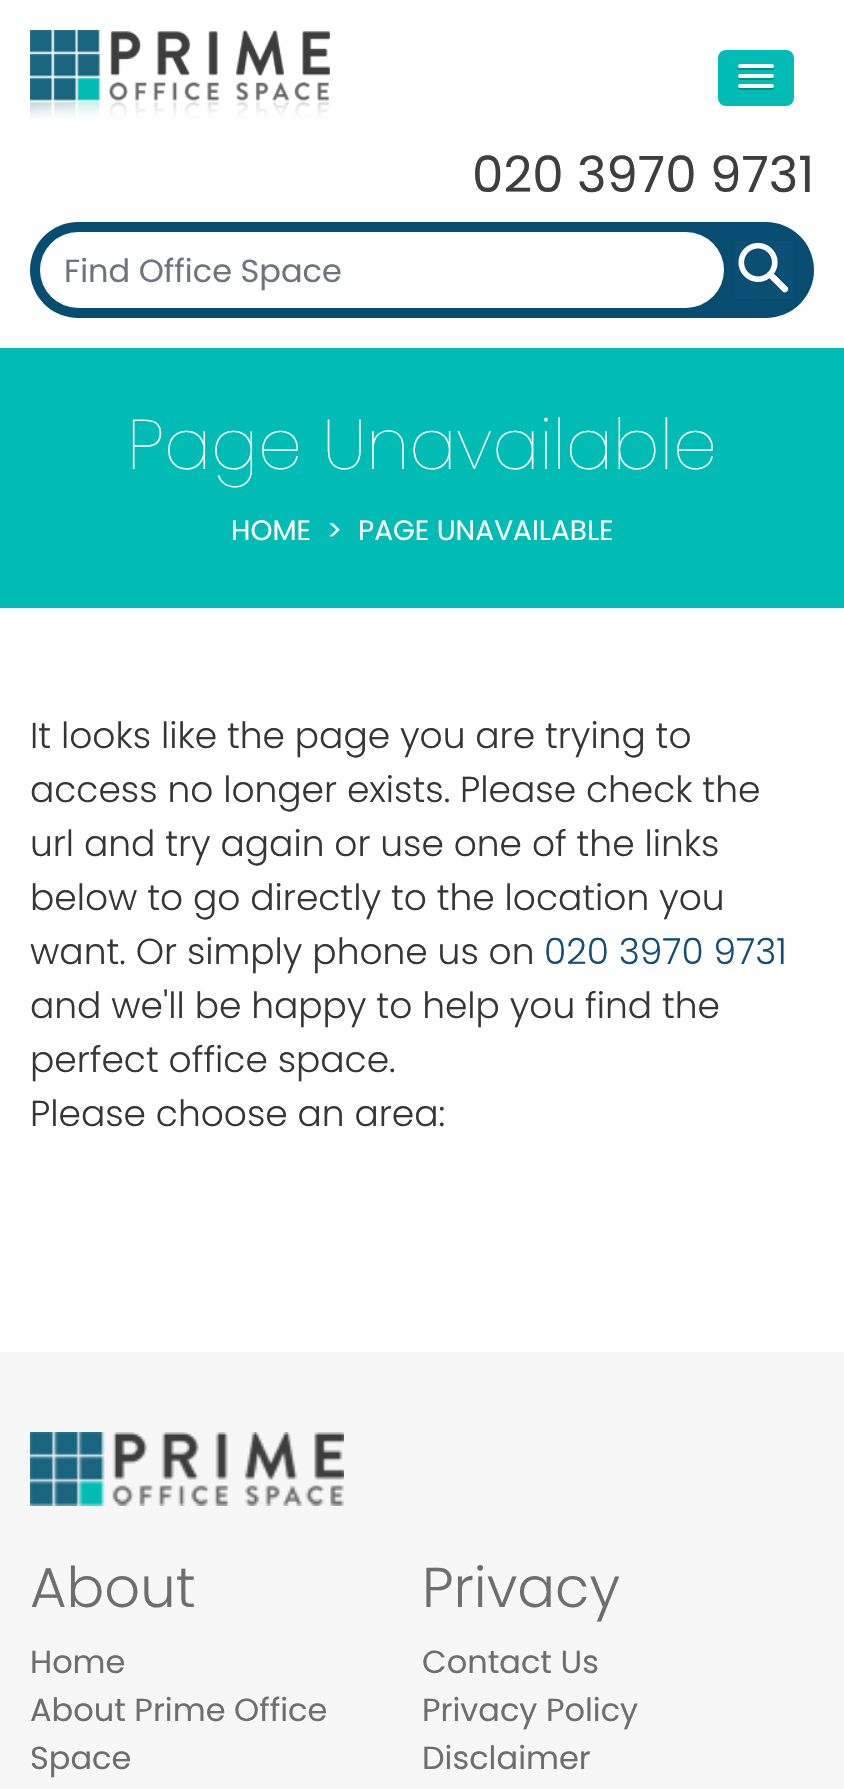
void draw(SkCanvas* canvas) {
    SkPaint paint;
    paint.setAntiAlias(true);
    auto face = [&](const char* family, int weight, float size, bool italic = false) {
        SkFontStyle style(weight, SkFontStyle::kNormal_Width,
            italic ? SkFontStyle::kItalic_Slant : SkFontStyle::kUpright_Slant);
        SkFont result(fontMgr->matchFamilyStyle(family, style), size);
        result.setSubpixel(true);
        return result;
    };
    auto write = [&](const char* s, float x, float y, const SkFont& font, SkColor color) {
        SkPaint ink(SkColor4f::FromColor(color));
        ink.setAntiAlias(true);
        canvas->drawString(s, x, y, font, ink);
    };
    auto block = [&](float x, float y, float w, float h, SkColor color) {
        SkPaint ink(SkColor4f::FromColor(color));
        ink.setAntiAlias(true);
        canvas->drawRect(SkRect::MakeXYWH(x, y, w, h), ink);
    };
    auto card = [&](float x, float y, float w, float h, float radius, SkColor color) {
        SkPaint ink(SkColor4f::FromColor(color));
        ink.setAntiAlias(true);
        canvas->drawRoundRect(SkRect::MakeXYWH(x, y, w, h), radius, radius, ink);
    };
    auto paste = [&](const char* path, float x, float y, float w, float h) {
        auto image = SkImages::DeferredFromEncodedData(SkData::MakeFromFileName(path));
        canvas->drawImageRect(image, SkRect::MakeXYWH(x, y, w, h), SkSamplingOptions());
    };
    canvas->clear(SK_ColorWHITE);
    paste("pic1.png", 30, 30, 300, 89);
    card(718, 50, 76, 56, 8, SkColorSetRGB(0, 188, 181));
    paint.setColor(SkColorSetRGB(0, 141, 136));
    canvas->drawPath(SkPathBuilder().moveTo(738.5f, 67).cubicTo(736, 71, 745, 70, 745.5f, 70).lineTo(766.5f, 70).cubicTo(767, 70, 776, 71, 773.5f, 67).cubicTo(773.5f, 67.5f, 772.5f, 68, 772, 68).lineTo(740, 68).cubicTo(739.5f, 68, 738.5f, 67.5f, 738.5f, 67).close().detach(), paint);
    card(738, 64, 36, 4, 2, SK_ColorWHITE);
    canvas->drawPath(SkPathBuilder().moveTo(738.5f, 77).cubicTo(736, 81, 745, 80, 745.5f, 80).lineTo(766.5f, 80).cubicTo(767, 80, 776, 81, 773.5f, 77).cubicTo(773.5f, 77.5f, 772.5f, 78, 772, 78).lineTo(740, 78).cubicTo(739.5f, 78, 738.5f, 77.5f, 738.5f, 77).close().detach(), paint);
    card(738, 74, 36, 4, 2, SK_ColorWHITE);
    canvas->drawPath(SkPathBuilder().moveTo(738.5f, 87).cubicTo(736, 91, 745, 90, 745.5f, 90).lineTo(766.5f, 90).cubicTo(767, 90, 776, 91, 773.5f, 87).cubicTo(773.5f, 87.5f, 772.5f, 88, 772, 88).lineTo(740, 88).cubicTo(739.5f, 88, 738.5f, 87.5f, 738.5f, 87).close().detach(), paint);
    card(738, 84, 36, 4, 2, SK_ColorWHITE);
    auto kFont1 = face("Poppins", 400, 50);
    write("020 3970 9731", 472, 192, kFont1, SkColorSetRGB(62, 62, 62));
    card(30, 222, 784, 96, 48, SkColorSetRGB(7, 77, 114));
    card(40, 232, 684, 76, 38, SK_ColorWHITE);
    auto kFont2 = face("Poppins", 400, 32);
    write("Find Office Space", 64, 282, kFont2, SkColorSetRGB(108, 117, 125));
    paste("pic2.png", 735, 241, 58, 58);
    block(0, 348, 844, 260, SkColorSetRGB(0, 188, 181));
    auto kFont3 = face("Poppins", 100, 70);
    write("Page Unavailable", 127, 469, kFont3, SK_ColorWHITE);
    auto kFont4 = face("Poppins", 400, 28);
    write("HOME", 231, 540, kFont4, SK_ColorWHITE);
    write(">", 327, 540, kFont4, SK_ColorWHITE);
    write("PAGE UNAVAILABLE", 358, 540, kFont4, SK_ColorWHITE);
    auto kFont5 = face("Poppins", 300, 36);
    write("It looks like the page you are trying to", 30, 748, kFont5, SkColorSetRGB(54, 54, 54));
    write("access no longer exists. Please check the", 30, 802, kFont5, SkColorSetRGB(54, 54, 54));
    write("url and try again or use one of the links", 30, 856, kFont5, SkColorSetRGB(54, 54, 54));
    write("below to go directly to the location you", 30, 910, kFont5, SkColorSetRGB(54, 54, 54));
    write("want. Or simply phone us on", 30, 964, kFont5, SkColorSetRGB(54, 54, 54));
    write("020 3970 9731", 544, 964, kFont5, SkColorSetRGB(20, 78, 116));
    write("and we'll be happy to help you find the", 30, 1018, kFont5, SkColorSetRGB(54, 54, 54));
    write("perfect office space.", 30, 1072, kFont5, SkColorSetRGB(54, 54, 54));
    write("Please choose an area:", 30, 1126, kFont5, SkColorSetRGB(54, 54, 54));
    block(0, 1352, 844, 437, SkColorSetRGB(247, 247, 247));
    paste("pic3.png", 30, 1432, 314, 74);
    auto kFont6 = face("Poppins", 300, 56);
    write("About", 30, 1607, kFont6, SkColorSetRGB(110, 110, 110));
    write("Home", 30, 1673, kFont2, SkColorSetRGB(110, 110, 110));
    write("About Prime Office", 30, 1721, kFont2, SkColorSetRGB(110, 110, 110));
    write("Space", 30, 1769, kFont2, SkColorSetRGB(110, 110, 110));
    write("Privacy", 422, 1607, kFont6, SkColorSetRGB(110, 110, 110));
    write("Contact Us", 422, 1673, kFont2, SkColorSetRGB(110, 110, 110));
    write("Privacy Policy", 422, 1721, kFont2, SkColorSetRGB(110, 110, 110));
    write("Disclaimer", 422, 1769, kFont2, SkColorSetRGB(110, 110, 110));
}
